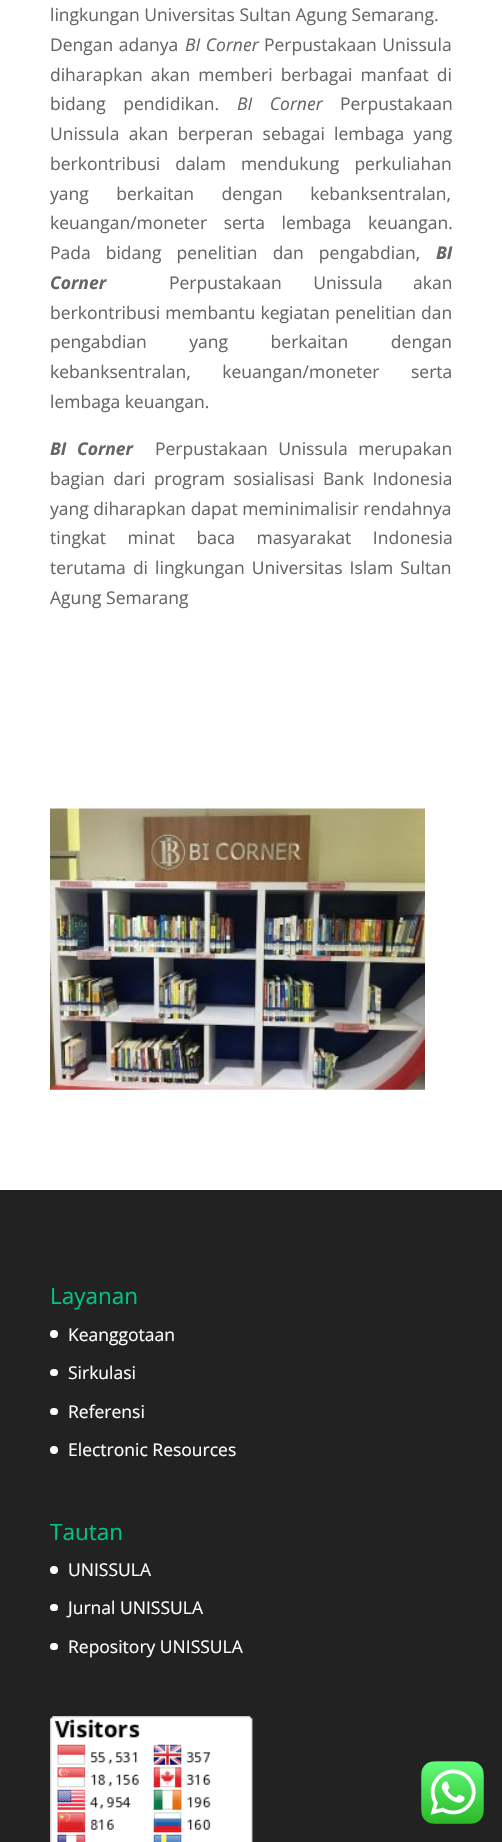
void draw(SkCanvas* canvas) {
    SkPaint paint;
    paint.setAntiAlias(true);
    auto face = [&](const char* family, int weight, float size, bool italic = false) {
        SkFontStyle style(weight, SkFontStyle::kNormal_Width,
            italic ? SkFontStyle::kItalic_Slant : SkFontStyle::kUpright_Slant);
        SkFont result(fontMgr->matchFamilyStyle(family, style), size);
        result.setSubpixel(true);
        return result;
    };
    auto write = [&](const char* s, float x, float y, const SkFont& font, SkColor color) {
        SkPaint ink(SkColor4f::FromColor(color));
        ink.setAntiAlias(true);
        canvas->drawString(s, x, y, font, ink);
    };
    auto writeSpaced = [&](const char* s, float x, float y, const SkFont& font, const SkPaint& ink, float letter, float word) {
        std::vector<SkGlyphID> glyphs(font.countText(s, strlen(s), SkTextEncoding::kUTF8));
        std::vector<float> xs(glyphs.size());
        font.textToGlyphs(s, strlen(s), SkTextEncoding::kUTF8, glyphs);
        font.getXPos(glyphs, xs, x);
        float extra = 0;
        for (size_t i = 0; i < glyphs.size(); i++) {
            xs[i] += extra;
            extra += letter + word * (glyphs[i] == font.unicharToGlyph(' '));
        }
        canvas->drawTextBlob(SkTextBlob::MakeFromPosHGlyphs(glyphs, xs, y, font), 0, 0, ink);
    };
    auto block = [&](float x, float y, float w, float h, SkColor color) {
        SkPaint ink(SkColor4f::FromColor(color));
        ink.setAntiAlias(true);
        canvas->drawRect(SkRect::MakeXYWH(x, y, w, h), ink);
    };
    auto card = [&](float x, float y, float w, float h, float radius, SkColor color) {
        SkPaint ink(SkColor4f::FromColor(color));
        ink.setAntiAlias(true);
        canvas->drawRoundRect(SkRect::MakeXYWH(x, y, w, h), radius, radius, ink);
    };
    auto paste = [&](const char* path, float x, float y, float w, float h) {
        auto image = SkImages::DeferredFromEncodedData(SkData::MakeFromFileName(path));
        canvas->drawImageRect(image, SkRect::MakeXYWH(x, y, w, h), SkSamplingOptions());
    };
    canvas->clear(SK_ColorWHITE);
    auto kFont1 = face("Open Sans", 400, 17.5f);
    write("lingkungan Universitas Sultan Agung Semarang.", 50, 21, kFont1, SkColorSetRGB(102, 102, 102));
    paint.setColor(SkColorSetRGB(102, 102, 102));
    writeSpaced("Dengan adanya", 50, 51, kFont1, paint, 0, 1);
    auto kFont2 = face("Open Sans", 400, 17.5f, true);
    writeSpaced("BI Corner", 185, 51, kFont2, paint, 0, 1);
    writeSpaced("Perpustakaan Unissula", 264, 51, kFont1, paint, 0, 1);
    writeSpaced("diharapkan akan memberi berbagai manfaat di", 50, 81, kFont1, paint, 0, 3.5f);
    writeSpaced("bidang pendidikan.", 50, 110, kFont1, paint, 0, 13);
    writeSpaced("BI Corner", 237, 110, kFont2, paint, 0, 13);
    write("Perpustakaan", 340, 110, kFont1, SkColorSetRGB(102, 102, 102));
    writeSpaced("Unissula akan berperan sebagai lembaga yang", 50, 140, kFont1, paint, 0, 4.75f);
    writeSpaced("berkontribusi dalam mendukung perkuliahan", 50, 170, kFont1, paint, 0, 10.5f);
    writeSpaced("yang berkaitan dengan kebanksentralan,", 50, 200, kFont1, paint, 0, 23);
    writeSpaced("keuangan/moneter serta lembaga keuangan.", 50, 229, kFont1, paint, 0, 12);
    writeSpaced("Pada bidang penelitian dan pengabdian,", 50, 259, kFont1, paint, 0, 10.5f);
    auto kFont3 = face("Open Sans", 700, 17.5f, true);
    write("BI", 436, 259, kFont3, SkColorSetRGB(102, 102, 102));
    write("Corner", 50, 289, kFont3, SkColorSetRGB(102, 102, 102));
    writeSpaced("Perpustakaan Unissula", 169, 289, kFont1, paint, 0, 27);
    write("akan", 413, 289, kFont1, SkColorSetRGB(102, 102, 102));
    writeSpaced("berkontribusi membantu kegiatan penelitian dan", 50, 319, kFont1, paint, 0, 0.5f);
    writeSpaced("pengabdian yang berkaitan dengan", 50, 348, kFont1, paint, 0, 38);
    writeSpaced("kebanksentralan, keuangan/moneter serta", 50, 378, kFont1, paint, 0, 27);
    write("lembaga keuangan.", 50, 408, kFont1, SkColorSetRGB(102, 102, 102));
    writeSpaced("BI Corner", 50, 455, kFont3, paint, 0, 6);
    writeSpaced("Perpustakaan Unissula merupakan", 155, 455, kFont1, paint, 0, 6);
    writeSpaced("bagian dari program sosialisasi Bank Indonesia", 50, 485, kFont1, paint, 0, 4);
    write("yang diharapkan dapat meminimalisir rendahnya", 50, 515, kFont1, SkColorSetRGB(102, 102, 102));
    writeSpaced("tingkat minat baca masyarakat Indonesia", 50, 544, kFont1, paint, 0, 17);
    writeSpaced("terutama di lingkungan Universitas Islam Sultan", 50, 574, kFont1, paint, 0, 2.5f);
    write("Agung Semarang", 50, 604, kFont1, SkColorSetRGB(102, 102, 102));
    paste("pic1.png", 50, 808, 375, 282);
    block(0, 1190, 502, 652, SkColorSetRGB(34, 34, 34));
    auto kFont4 = face("Open Sans", 400, 22.5f);
    write("Layanan", 50, 1304, kFont4, SkColorSetRGB(0, 198, 125));
    paint.setColor(SK_ColorWHITE);
    canvas->drawCircle(54, 1334, 4, paint);
    write("Keanggotaan", 68, 1341, kFont1, SK_ColorWHITE);
    card(50, 1369, 8, 7, 3.5f, SK_ColorWHITE);
    write("Sirkulasi", 68, 1379, kFont1, SK_ColorWHITE);
    card(50, 1408, 8, 7, 3.5f, SK_ColorWHITE);
    write("Referensi", 68, 1418, kFont1, SK_ColorWHITE);
    canvas->drawCircle(54, 1450, 4, paint);
    write("Electronic Resources", 68, 1456, kFont1, SK_ColorWHITE);
    write("Tautan", 50, 1540, kFont4, SkColorSetRGB(0, 198, 125));
    canvas->drawCircle(54, 1570, 4, paint);
    write("UNISSULA", 68, 1576, kFont1, SK_ColorWHITE);
    card(50, 1604, 8, 7, 3.5f, SK_ColorWHITE);
    write("Jurnal UNISSULA", 68, 1614, kFont1, SK_ColorWHITE);
    card(50, 1643, 8, 7, 3.5f, SK_ColorWHITE);
    write("Repository UNISSULA", 68, 1653, kFont1, SK_ColorWHITE);
    paste("pic2.png", 50, 1716, 203, 126);
    paste("pic3.png", 421, 1761, 63, 63);
}
